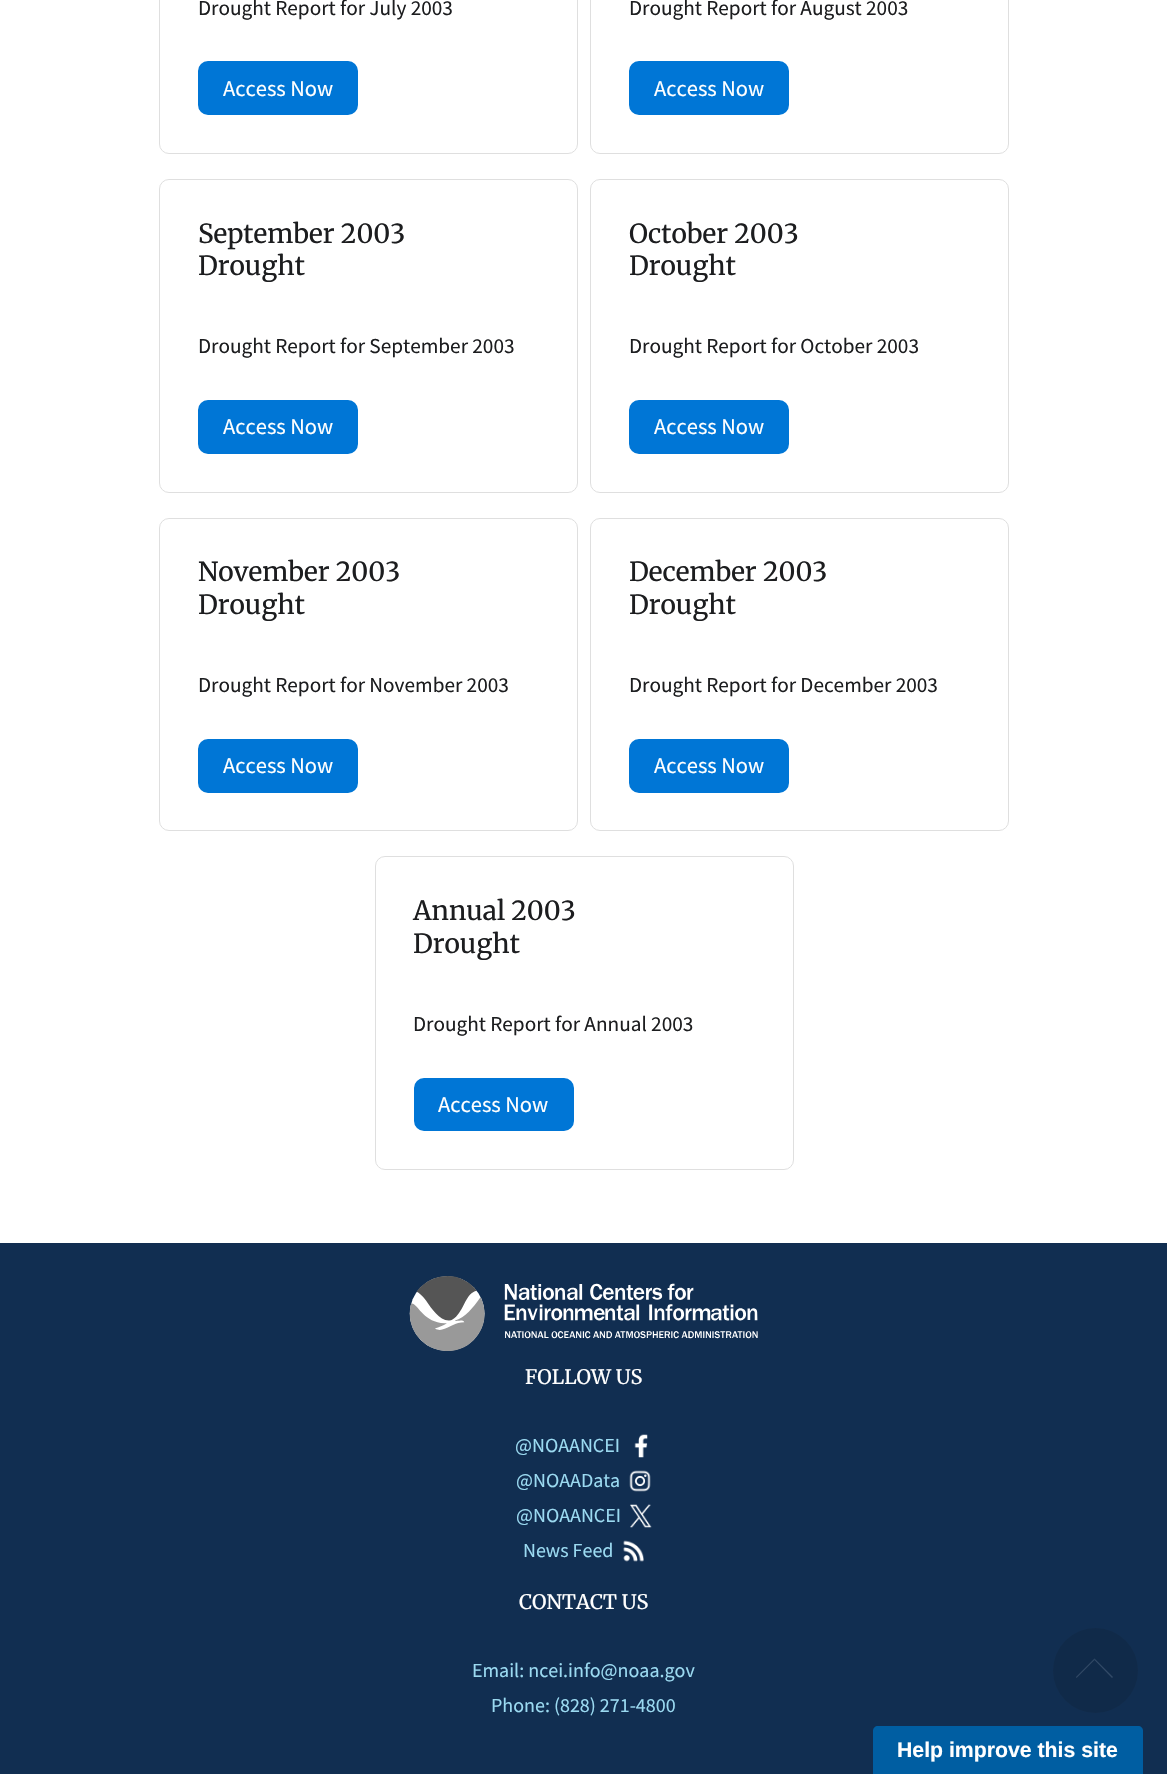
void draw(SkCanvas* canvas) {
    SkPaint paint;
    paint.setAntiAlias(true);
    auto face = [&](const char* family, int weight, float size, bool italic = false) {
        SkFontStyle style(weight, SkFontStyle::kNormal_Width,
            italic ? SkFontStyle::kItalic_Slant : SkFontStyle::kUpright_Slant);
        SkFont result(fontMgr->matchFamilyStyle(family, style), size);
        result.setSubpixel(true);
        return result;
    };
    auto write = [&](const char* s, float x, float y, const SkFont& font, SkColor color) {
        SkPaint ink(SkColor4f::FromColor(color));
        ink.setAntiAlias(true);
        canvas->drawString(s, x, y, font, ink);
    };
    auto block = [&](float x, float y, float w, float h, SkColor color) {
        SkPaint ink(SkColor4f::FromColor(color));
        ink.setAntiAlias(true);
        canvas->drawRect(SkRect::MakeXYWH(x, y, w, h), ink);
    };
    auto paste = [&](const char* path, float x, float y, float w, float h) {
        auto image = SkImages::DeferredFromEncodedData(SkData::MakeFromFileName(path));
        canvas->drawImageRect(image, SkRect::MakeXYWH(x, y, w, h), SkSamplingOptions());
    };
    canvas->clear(SK_ColorWHITE);
    paint.setStyle(SkPaint::kStroke_Style);
    paint.setStrokeWidth(1);
    paint.setColor(SkColorSetRGB(223, 223, 223));
    canvas->drawRoundRect(SkRect::MakeXYWH(159.5f, -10.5f, 418, 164), 9.5f, 9.5f, paint);
    auto kFont1 = face("Source Sans Pro", 400, 21.25f);
    write("Drought Report for July 2003", 198, 15, kFont1, SkColorSetRGB(28, 29, 31));
    paint.setStyle(SkPaint::kFill_Style);
    paint.setColor(SkColorSetRGB(0, 118, 214));
    canvas->drawRoundRect(SkRect::MakeXYWH(199.5f, 62.5f, 157, 51), 8.5f, 8.5f, paint);
    paint.setStyle(SkPaint::kStroke_Style);
    paint.setStrokeWidth(3);
    canvas->drawRoundRect(SkRect::MakeXYWH(199.5f, 62.5f, 157, 51), 8.5f, 8.5f, paint);
    auto kFont2 = face("Source Sans Pro", 400, 22.5f);
    write("Access Now", 223, 96, kFont2, SK_ColorWHITE);
    paint.setStrokeWidth(1);
    paint.setColor(SkColorSetRGB(223, 223, 223));
    canvas->drawRoundRect(SkRect::MakeXYWH(590.5f, -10.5f, 418, 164), 9.5f, 9.5f, paint);
    write("Drought Report for August 2003", 629, 15, kFont1, SkColorSetRGB(28, 29, 31));
    paint.setStyle(SkPaint::kFill_Style);
    paint.setColor(SkColorSetRGB(0, 118, 214));
    canvas->drawRoundRect(SkRect::MakeXYWH(630.5f, 62.5f, 157, 51), 8.5f, 8.5f, paint);
    paint.setStyle(SkPaint::kStroke_Style);
    paint.setStrokeWidth(3);
    canvas->drawRoundRect(SkRect::MakeXYWH(630.5f, 62.5f, 157, 51), 8.5f, 8.5f, paint);
    write("Access Now", 654, 96, kFont2, SK_ColorWHITE);
    paint.setStrokeWidth(1);
    paint.setColor(SkColorSetRGB(223, 223, 223));
    canvas->drawRoundRect(SkRect::MakeXYWH(159.5f, 179.5f, 418, 313), 9.5f, 9.5f, paint);
    auto kFont3 = face("Merriweather", 400, 26.25f);
    write("September 2003", 198, 243, kFont3, SkColorSetRGB(28, 29, 31));
    write("Drought", 198, 275, kFont3, SkColorSetRGB(28, 29, 31));
    write("Drought Report for September 2003", 198, 353, kFont1, SkColorSetRGB(28, 29, 31));
    paint.setStyle(SkPaint::kFill_Style);
    paint.setColor(SkColorSetRGB(0, 118, 214));
    canvas->drawRoundRect(SkRect::MakeXYWH(199.5f, 401.5f, 157, 51), 8.5f, 8.5f, paint);
    paint.setStyle(SkPaint::kStroke_Style);
    paint.setStrokeWidth(3);
    canvas->drawRoundRect(SkRect::MakeXYWH(199.5f, 401.5f, 157, 51), 8.5f, 8.5f, paint);
    write("Access Now", 223, 434, kFont2, SK_ColorWHITE);
    paint.setStrokeWidth(1);
    paint.setColor(SkColorSetRGB(223, 223, 223));
    canvas->drawRoundRect(SkRect::MakeXYWH(590.5f, 179.5f, 418, 313), 9.5f, 9.5f, paint);
    write("October 2003", 629, 243, kFont3, SkColorSetRGB(28, 29, 31));
    write("Drought", 629, 275, kFont3, SkColorSetRGB(28, 29, 31));
    write("Drought Report for October 2003", 629, 353, kFont1, SkColorSetRGB(28, 29, 31));
    paint.setStyle(SkPaint::kFill_Style);
    paint.setColor(SkColorSetRGB(0, 118, 214));
    canvas->drawRoundRect(SkRect::MakeXYWH(630.5f, 401.5f, 157, 51), 8.5f, 8.5f, paint);
    paint.setStyle(SkPaint::kStroke_Style);
    paint.setStrokeWidth(3);
    canvas->drawRoundRect(SkRect::MakeXYWH(630.5f, 401.5f, 157, 51), 8.5f, 8.5f, paint);
    write("Access Now", 654, 434, kFont2, SK_ColorWHITE);
    paint.setStrokeWidth(1);
    paint.setColor(SkColorSetRGB(223, 223, 223));
    canvas->drawRoundRect(SkRect::MakeXYWH(159.5f, 518.5f, 418, 312), 9.5f, 9.5f, paint);
    write("November 2003", 198, 581, kFont3, SkColorSetRGB(28, 29, 31));
    write("Drought", 198, 614, kFont3, SkColorSetRGB(28, 29, 31));
    write("Drought Report for November 2003", 198, 692, kFont1, SkColorSetRGB(28, 29, 31));
    paint.setStyle(SkPaint::kFill_Style);
    paint.setColor(SkColorSetRGB(0, 118, 214));
    canvas->drawRoundRect(SkRect::MakeXYWH(199.5f, 740.5f, 157, 51), 8.5f, 8.5f, paint);
    paint.setStyle(SkPaint::kStroke_Style);
    paint.setStrokeWidth(3);
    canvas->drawRoundRect(SkRect::MakeXYWH(199.5f, 740.5f, 157, 51), 8.5f, 8.5f, paint);
    write("Access Now", 223, 773, kFont2, SK_ColorWHITE);
    paint.setStrokeWidth(1);
    paint.setColor(SkColorSetRGB(223, 223, 223));
    canvas->drawRoundRect(SkRect::MakeXYWH(590.5f, 518.5f, 418, 312), 9.5f, 9.5f, paint);
    write("December 2003", 629, 581, kFont3, SkColorSetRGB(28, 29, 31));
    write("Drought", 629, 614, kFont3, SkColorSetRGB(28, 29, 31));
    write("Drought Report for December 2003", 629, 692, kFont1, SkColorSetRGB(28, 29, 31));
    paint.setStyle(SkPaint::kFill_Style);
    paint.setColor(SkColorSetRGB(0, 118, 214));
    canvas->drawRoundRect(SkRect::MakeXYWH(630.5f, 740.5f, 157, 51), 8.5f, 8.5f, paint);
    paint.setStyle(SkPaint::kStroke_Style);
    paint.setStrokeWidth(3);
    canvas->drawRoundRect(SkRect::MakeXYWH(630.5f, 740.5f, 157, 51), 8.5f, 8.5f, paint);
    write("Access Now", 654, 773, kFont2, SK_ColorWHITE);
    paint.setStrokeWidth(1);
    paint.setColor(SkColorSetRGB(223, 223, 223));
    canvas->drawRoundRect(SkRect::MakeXYWH(375.5f, 856.5f, 418, 313), 9.5f, 9.5f, paint);
    write("Annual 2003", 413, 920, kFont3, SkColorSetRGB(28, 29, 31));
    write("Drought", 413, 953, kFont3, SkColorSetRGB(28, 29, 31));
    write("Drought Report for Annual 2003", 413, 1031, kFont1, SkColorSetRGB(28, 29, 31));
    paint.setStyle(SkPaint::kFill_Style);
    paint.setColor(SkColorSetRGB(0, 118, 214));
    canvas->drawRoundRect(SkRect::MakeXYWH(415.5f, 1079.5f, 157, 50), 8.5f, 8.5f, paint);
    paint.setStyle(SkPaint::kStroke_Style);
    paint.setStrokeWidth(3);
    canvas->drawRoundRect(SkRect::MakeXYWH(415.5f, 1079.5f, 157, 50), 8.5f, 8.5f, paint);
    write("Access Now", 438, 1112, kFont2, SK_ColorWHITE);
    block(0, 1243, 1167, 531, SkColorSetRGB(17, 46, 81));
    paste("pic1.png", 409, 1276, 349, 75);
    auto kFont4 = face("Merriweather", 400, 20);
    write("FOLLOW US", 525, 1384, kFont4, SK_ColorWHITE);
    auto kFont5 = face("Source Sans Pro", 400, 20);
    write("@NOAANCEI", 515, 1452, kFont5, SkColorSetRGB(155, 218, 241));
    paste("pic2.png", 634, 1434, 14, 24);
    write("@NOAAData", 516, 1487, kFont5, SkColorSetRGB(155, 218, 241));
    paste("pic3.png", 629, 1470, 22, 22);
    write("@NOAANCEI", 516, 1522, kFont5, SkColorSetRGB(155, 218, 241));
    paste("pic4.png", 630, 1504, 22, 24);
    write("News Feed", 523, 1557, kFont5, SkColorSetRGB(155, 218, 241));
    paste("pic5.png", 623, 1540, 21, 22);
    write("CONTACT US", 519, 1609, kFont4, SK_ColorWHITE);
    write("Email: ncei.info@noaa.gov", 472, 1677, kFont5, SkColorSetRGB(155, 218, 241));
    write("Phone: (828) 271-4800", 491, 1712, kFont5, SkColorSetRGB(155, 218, 241));
    paint.setStyle(SkPaint::kFill_Style);
    paint.setColor(SkColorSetRGB(16, 42, 73));
    canvas->drawCircle(1095.5f, 1670.5f, 42.5f, paint);
    paint.setColor(SkColorSetRGB(50, 74, 102));
    canvas->drawPath(SkPathBuilder().moveTo(1076, 1677).lineTo(1094.5f, 1658.5f).lineTo(1094.5f, 1660).lineTo(1076.5f, 1678).close().detach(), paint);
    paint.setColor(SkColorSetARGB(179, 64, 87, 115));
    canvas->drawPath(SkPathBuilder().moveTo(1094.5f, 1658.5f).lineTo(1113, 1677).lineTo(1112, 1678).lineTo(1094.5f, 1660).close().detach(), paint);
    paint.setColor(SkColorSetRGB(0, 94, 162));
    canvas->drawPath(SkPathBuilder().moveTo(878, 1726).lineTo(1138, 1726).cubicTo(1141, 1726, 1143, 1728, 1143, 1731).lineTo(1143, 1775).lineTo(873, 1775).lineTo(873, 1731).cubicTo(873, 1728, 875, 1726, 878, 1726).close().detach(), paint);
    auto kFont6 = face("Liberation Sans", 700, 21.25f);
    write("Help improve this site", 897, 1757, kFont6, SK_ColorWHITE);
}
